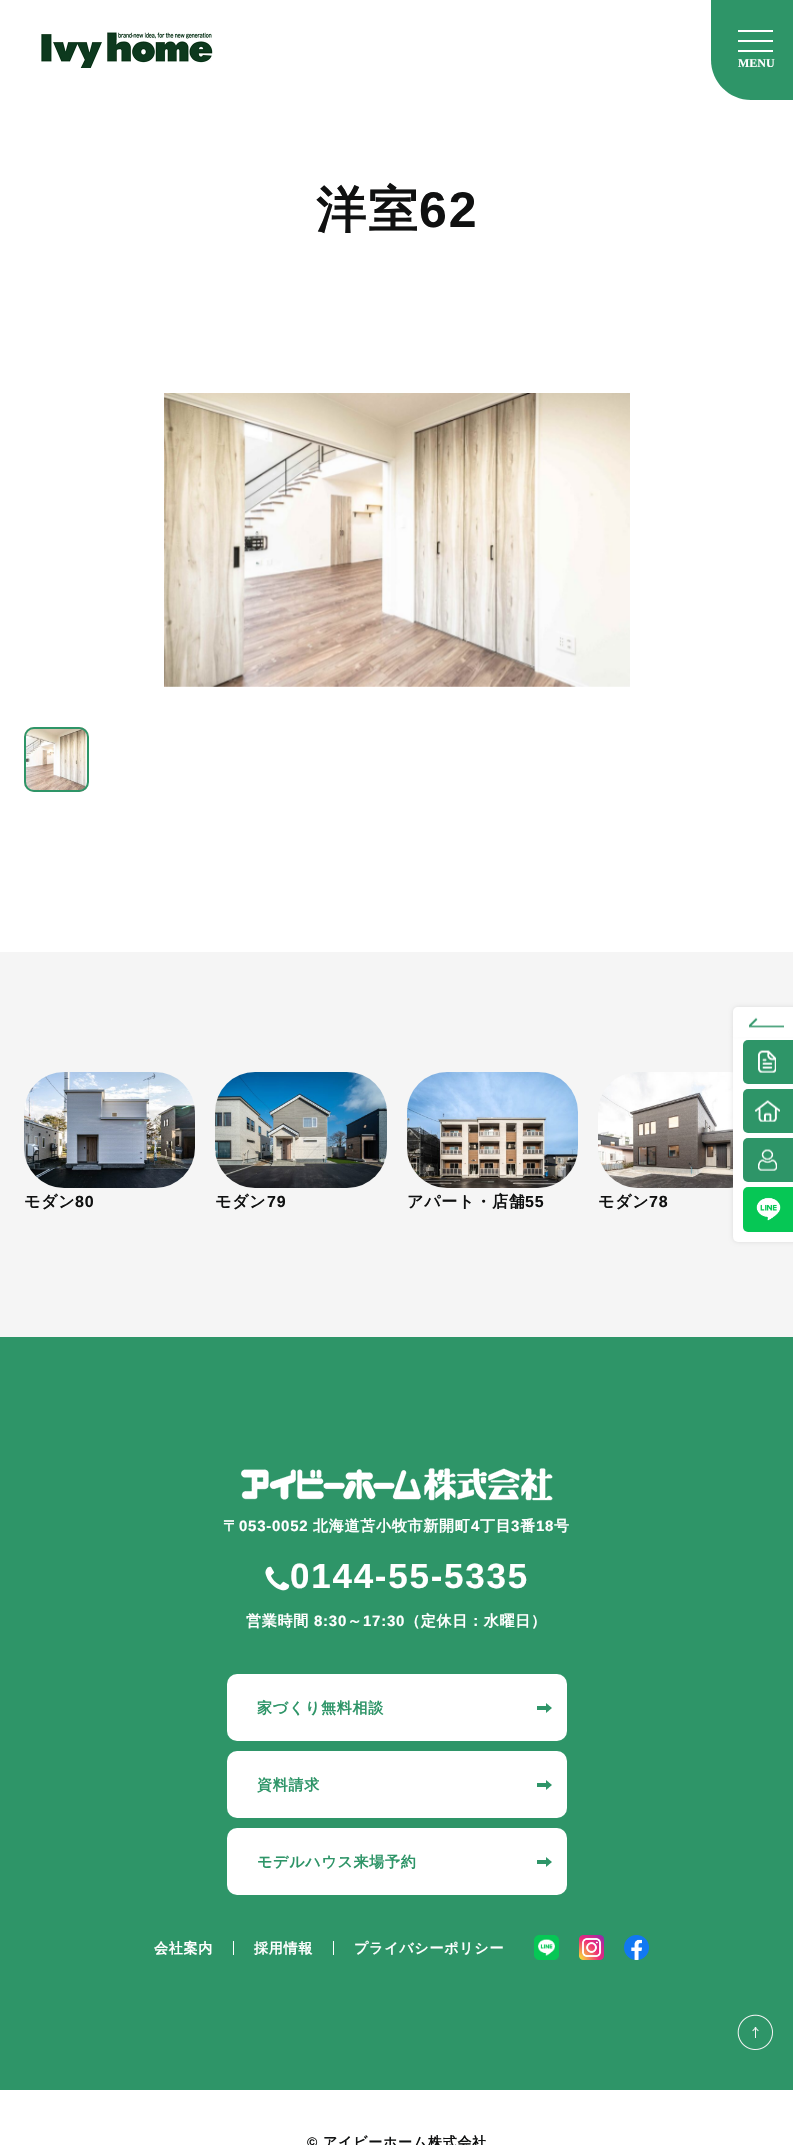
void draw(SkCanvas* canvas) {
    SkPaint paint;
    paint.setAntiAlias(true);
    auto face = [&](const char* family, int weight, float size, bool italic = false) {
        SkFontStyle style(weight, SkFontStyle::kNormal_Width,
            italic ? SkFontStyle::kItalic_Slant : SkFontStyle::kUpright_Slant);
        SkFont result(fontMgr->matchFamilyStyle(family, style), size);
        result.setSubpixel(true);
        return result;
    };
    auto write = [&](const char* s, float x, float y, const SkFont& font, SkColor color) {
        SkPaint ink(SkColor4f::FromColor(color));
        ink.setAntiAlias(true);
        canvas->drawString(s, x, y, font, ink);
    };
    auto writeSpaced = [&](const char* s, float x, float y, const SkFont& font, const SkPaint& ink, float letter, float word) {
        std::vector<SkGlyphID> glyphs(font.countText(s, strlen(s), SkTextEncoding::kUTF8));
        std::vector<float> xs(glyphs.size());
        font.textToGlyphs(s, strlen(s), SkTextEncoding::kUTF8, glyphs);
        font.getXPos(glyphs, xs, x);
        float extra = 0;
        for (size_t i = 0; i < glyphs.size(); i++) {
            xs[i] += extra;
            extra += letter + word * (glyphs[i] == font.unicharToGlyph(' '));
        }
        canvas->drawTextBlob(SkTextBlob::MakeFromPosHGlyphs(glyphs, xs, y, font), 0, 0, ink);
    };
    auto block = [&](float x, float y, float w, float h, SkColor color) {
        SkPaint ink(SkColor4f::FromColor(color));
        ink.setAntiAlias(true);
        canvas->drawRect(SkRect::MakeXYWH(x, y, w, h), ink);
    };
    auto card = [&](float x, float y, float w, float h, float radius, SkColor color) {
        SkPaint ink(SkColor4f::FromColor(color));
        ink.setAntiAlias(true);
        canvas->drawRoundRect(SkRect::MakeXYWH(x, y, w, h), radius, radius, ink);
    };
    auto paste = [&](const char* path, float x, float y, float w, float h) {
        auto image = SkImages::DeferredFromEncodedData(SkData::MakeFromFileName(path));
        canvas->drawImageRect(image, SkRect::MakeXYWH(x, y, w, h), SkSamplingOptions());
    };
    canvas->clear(SK_ColorWHITE);
    paste("pic1.png", 41, 32, 172, 36);
    block(0, 952, 793, 385, SkColorSetRGB(245, 245, 245));
    paste("pic12.png", 598, 1072, 135, 116);
    paint.setColor(SkColorSetARGB(26, 0, 0, 0));
    paint.setMaskFilter(SkMaskFilter::MakeBlur(kNormal_SkBlurStyle, 2));
    canvas->drawRoundRect(SkRect::MakeXYWH(733, 1030, 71, 212), 5, 5, paint);
    paint.setMaskFilter(nullptr);
    card(733, 1030, 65, 212, 5, SK_ColorWHITE);
    paint.setMaskFilter(SkMaskFilter::MakeBlur(kNormal_SkBlurStyle, 2));
    canvas->drawRoundRect(SkRect::MakeXYWH(733, 1007, 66, 27), 5, 5, paint);
    paint.setMaskFilter(nullptr);
    paint.setColor(SK_ColorWHITE);
    canvas->drawPath(SkPathBuilder().moveTo(738, 1007).lineTo(793, 1007).cubicTo(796, 1007, 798, 1009, 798, 1012).lineTo(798, 1034).lineTo(733, 1034).lineTo(733, 1012).cubicTo(733, 1009, 735, 1007, 738, 1007).close().detach(), paint);
    paste("pic2.png", 749, 1017, 35, 11);
    block(733, 1034, 60, 3, SK_ColorWHITE);
    card(743, 1040, 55, 44, 5, SkColorSetRGB(46, 149, 104));
    paste("pic3.png", 758, 1050, 18, 23);
    card(743, 1089, 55, 44, 5, SkColorSetRGB(46, 149, 104));
    paste("pic4.png", 755, 1100, 25, 22);
    card(743, 1138, 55, 44, 5, SkColorSetRGB(46, 149, 104));
    paste("pic5.png", 758, 1149, 19, 22);
    card(743, 1187, 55, 45, 5, SkColorSetRGB(6, 199, 85));
    paste("pic6.png", 756, 1197, 25, 24);
    paint.setColor(SkColorSetRGB(46, 149, 104));
    canvas->drawPath(SkPathBuilder().moveTo(711, 0).lineTo(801, 0).lineTo(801, 100).lineTo(751, 100).cubicTo(729, 100, 711, 82, 711, 60).close().detach(), paint);
    block(738, 30, 35, 2, SK_ColorWHITE);
    block(738, 40, 35, 2, SK_ColorWHITE);
    block(738, 50, 35, 2, SK_ColorWHITE);
    auto kFont1 = face("Liberation Serif", 700, 12);
    write("MENU", 738, 67, kFont1, SK_ColorWHITE);
    auto kFont2 = face("WenQuanYi Zen Hei", 700, 50);
    paint.setColor(SkColorSetRGB(16, 17, 17));
    writeSpaced("洋室", 316, 227, kFont2, paint, 2, 0);
    auto kFont3 = face("Liberation Sans", 700, 50);
    writeSpaced("62", 419, 227, kFont3, paint, 2, 0);
    paste("pic7.png", 164, 393, 466, 294);
    paste("pic8.png", 24, 727, 65, 65);
    paint.setStyle(SkPaint::kStroke_Style);
    paint.setStrokeWidth(2);
    paint.setColor(SkColorSetRGB(46, 149, 104));
    canvas->drawRoundRect(SkRect::MakeXYWH(25, 728, 63, 63), 9, 9, paint);
    paste("pic9.png", 24, 1072, 171, 116);
    auto kFont4 = face("WenQuanYi Zen Hei", 700, 16);
    paint.setStyle(SkPaint::kFill_Style);
    paint.setColor(SkColorSetRGB(16, 17, 17));
    writeSpaced("モダン", 24, 1207, kFont4, paint, 0.75f, 0);
    auto kFont5 = face("Liberation Sans", 700, 16);
    writeSpaced("80", 75, 1207, kFont5, paint, 0.75f, 0);
    paste("pic10.png", 215, 1072, 172, 116);
    writeSpaced("モダン", 215, 1207, kFont4, paint, 0.75f, 0);
    writeSpaced("79", 267, 1207, kFont5, paint, 0.75f, 0);
    paste("pic11.png", 407, 1072, 171, 116);
    writeSpaced("アパート・店舗", 407, 1207, kFont4, paint, 0.75f, 0);
    writeSpaced("55", 525, 1207, kFont5, paint, 0.75f, 0);
    writeSpaced("モダン", 598, 1207, kFont4, paint, 0.75f, 0);
    writeSpaced("78", 649, 1207, kFont5, paint, 0.75f, 0);
    block(0, 1337, 793, 753, SkColorSetRGB(46, 149, 104));
    paste("pic13.png", 241, 1468, 312, 33);
    auto kFont6 = face("WenQuanYi Zen Hei", 700, 15);
    paint.setColor(SK_ColorWHITE);
    writeSpaced("〒", 223, 1531, kFont6, paint, 0.75f, 0);
    auto kFont7 = face("Liberation Sans", 700, 15);
    writeSpaced("053-0052", 239, 1531, kFont7, paint, 0.75f, 0);
    writeSpaced("北海道苫小牧市新開町", 313, 1531, kFont6, paint, 0.75f, 0);
    writeSpaced("4", 471, 1531, kFont7, paint, 0.75f, 0);
    writeSpaced("丁目", 480, 1531, kFont6, paint, 0.75f, 0);
    writeSpaced("3", 511, 1531, kFont7, paint, 0.75f, 0);
    writeSpaced("番", 520, 1531, kFont6, paint, 0.75f, 0);
    writeSpaced("18", 536, 1531, kFont7, paint, 0.75f, 0);
    writeSpaced("号", 554, 1531, kFont6, paint, 0.75f, 0);
    paste("pic14.png", 265, 1566, 25, 25);
    auto kFont8 = face("Liberation Sans", 700, 35);
    writeSpaced("0144-55-5335", 290, 1588, kFont8, paint, 1.75f, 0);
    writeSpaced("営業時間", 246, 1626, kFont6, paint, 0.75f, 0);
    writeSpaced("8:30", 314, 1626, kFont7, paint, 0.75f, 0);
    writeSpaced("～", 347, 1626, kFont6, paint, 0.75f, 0);
    writeSpaced("17:30", 363, 1626, kFont7, paint, 0.75f, 0);
    writeSpaced("（定休日：水曜日）", 405, 1626, kFont6, paint, 0.75f, 0);
    card(227, 1674, 340, 67, 10, SK_ColorWHITE);
    paint.setColor(SkColorSetRGB(46, 149, 104));
    writeSpaced("家づくり無料相談", 257, 1713, kFont6, paint, 0.75f, 0);
    paste("pic15.png", 537, 1703, 15, 10);
    card(227, 1751, 340, 67, 10, SK_ColorWHITE);
    writeSpaced("資料請求", 257, 1790, kFont6, paint, 0.75f, 0);
    paste("pic15.png", 537, 1780, 15, 10);
    card(227, 1828, 340, 67, 10, SK_ColorWHITE);
    writeSpaced("モデルハウス来場予約", 257, 1867, kFont6, paint, 0.75f, 0);
    paste("pic15.png", 537, 1857, 15, 10);
    block(233, 1941, 1, 14, SK_ColorWHITE);
    auto kFont9 = face("WenQuanYi Zen Hei", 700, 14);
    paint.setColor(SK_ColorWHITE);
    writeSpaced("会社案内", 154, 1953, kFont9, paint, 0.75f, 0);
    block(333, 1941, 1, 14, SK_ColorWHITE);
    writeSpaced("採用情報", 254, 1953, kFont9, paint, 0.75f, 0);
    writeSpaced("プライバシーポリシー", 354, 1953, kFont9, paint, 0.75f, 0);
    paste("pic16.png", 534, 1935, 25, 25);
    paste("pic17.png", 579, 1935, 25, 25);
    paste("pic18.png", 624, 1935, 25, 25);
    paste("pic19.png", 737, 2014, 36, 36);
    auto kFont10 = face("Liberation Sans", 700, 14);
    paint.setColor(SkColorSetRGB(16, 17, 17));
    writeSpaced("©", 307, 2147, kFont10, paint, 0.75f, 0);
    writeSpaced("アイビーホーム株式会社", 323, 2147, kFont9, paint, 0.75f, 0);
}
